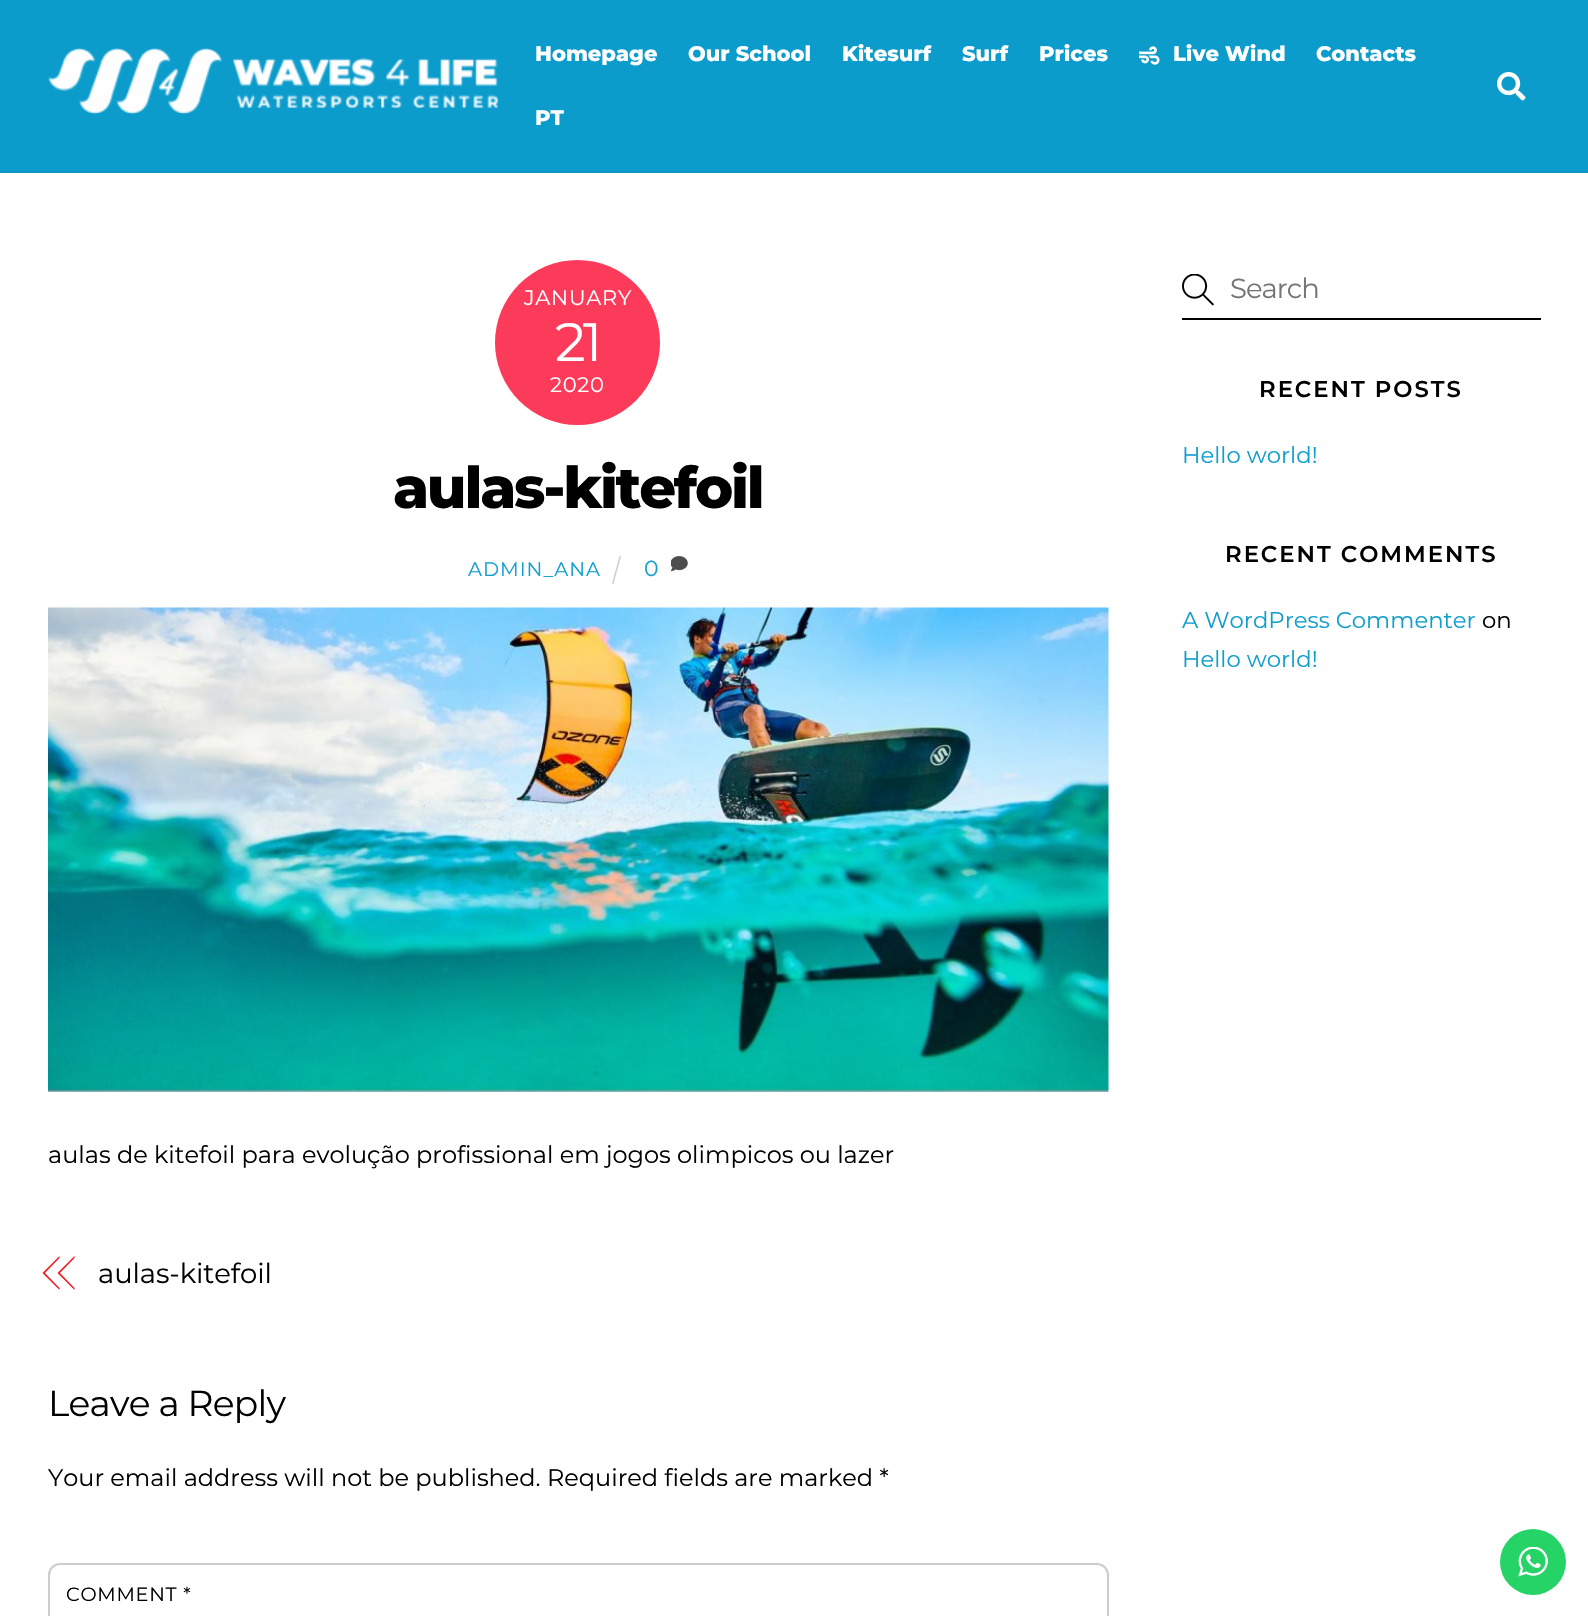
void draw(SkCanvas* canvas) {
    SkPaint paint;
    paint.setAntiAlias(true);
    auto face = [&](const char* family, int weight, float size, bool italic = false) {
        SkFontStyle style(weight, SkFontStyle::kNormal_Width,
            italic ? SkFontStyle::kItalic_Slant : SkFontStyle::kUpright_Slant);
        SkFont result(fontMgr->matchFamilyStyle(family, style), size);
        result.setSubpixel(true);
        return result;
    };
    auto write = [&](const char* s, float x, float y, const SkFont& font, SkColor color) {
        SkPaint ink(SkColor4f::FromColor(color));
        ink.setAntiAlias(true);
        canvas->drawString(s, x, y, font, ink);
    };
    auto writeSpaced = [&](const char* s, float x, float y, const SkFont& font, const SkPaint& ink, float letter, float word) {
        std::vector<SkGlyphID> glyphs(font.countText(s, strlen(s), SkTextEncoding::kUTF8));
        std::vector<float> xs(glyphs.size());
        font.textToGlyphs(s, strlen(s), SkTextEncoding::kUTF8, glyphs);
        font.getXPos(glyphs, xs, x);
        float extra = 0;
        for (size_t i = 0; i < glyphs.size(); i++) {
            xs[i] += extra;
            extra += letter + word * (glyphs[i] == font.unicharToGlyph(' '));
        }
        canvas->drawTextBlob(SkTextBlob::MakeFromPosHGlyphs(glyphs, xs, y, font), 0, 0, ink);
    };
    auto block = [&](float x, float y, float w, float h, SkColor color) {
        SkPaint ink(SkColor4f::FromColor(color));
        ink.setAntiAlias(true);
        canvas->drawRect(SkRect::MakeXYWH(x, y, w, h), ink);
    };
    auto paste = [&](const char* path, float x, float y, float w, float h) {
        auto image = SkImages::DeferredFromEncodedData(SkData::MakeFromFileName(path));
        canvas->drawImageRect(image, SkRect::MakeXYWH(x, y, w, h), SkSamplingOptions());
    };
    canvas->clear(SK_ColorWHITE);
    block(0, 0, 1588, 171, SkColorSetRGB(12, 156, 204));
    block(0, 171, 1588, 2, SkColorSetRGB(11, 148, 194));
    paste("pic1.png", 48, 48, 450, 66);
    auto kFont1 = face("Montserrat", 800, 21);
    write("Homepage", 535, 61, kFont1, SK_ColorWHITE);
    write("Our School", 688, 61, kFont1, SK_ColorWHITE);
    write("Kitesurf", 842, 61, kFont1, SK_ColorWHITE);
    write("Surf", 962, 61, kFont1, SK_ColorWHITE);
    write("Prices", 1039, 61, kFont1, SK_ColorWHITE);
    paste("pic2.png", 1139, 46, 21, 19);
    write("Live Wind", 1173, 61, kFont1, SK_ColorWHITE);
    write("Contacts", 1316, 61, kFont1, SK_ColorWHITE);
    write("PT", 535, 125, kFont1, SK_ColorWHITE);
    paste("pic3.png", 1497, 72, 29, 29);
    paint.setColor(SkColorSetRGB(252, 58, 89));
    canvas->drawCircle(577.5f, 342.5f, 82.5f, paint);
    auto kFont2 = face("Montserrat", 400, 21);
    paint.setColor(SK_ColorWHITE);
    writeSpaced("JANUARY", 524, 305, kFont2, paint, 0.75f, 0);
    auto kFont3 = face("Montserrat", 400, 54);
    writeSpaced("21", 555, 361, kFont3, paint, -3, 0);
    writeSpaced("2020", 550, 392, kFont2, paint, 0.75f, 0);
    auto kFont4 = face("Montserrat", 800, 57.5f);
    paint.setColor(SK_ColorBLACK);
    writeSpaced("aulas-kitefoil", 393, 508, kFont4, paint, -2.25f, 0);
    auto kFont5 = face("Montserrat", 400, 19.5f);
    paint.setColor(SkColorSetRGB(16, 159, 205));
    writeSpaced("ADMIN_ANA", 468, 576, kFont5, paint, 1, 0);
    paint.setColor(SkColorSetRGB(204, 204, 204));
    canvas->drawPath(SkPathBuilder().moveTo(619.5f, 556).lineTo(621, 556).lineTo(613.5f, 584).lineTo(612, 584).close().detach(), paint);
    auto kFont6 = face("Montserrat", 400, 22);
    write("0", 644, 576, kFont6, SkColorSetRGB(16, 159, 205));
    paste("pic4.png", 671, 556, 17, 16);
    paste("pic5.png", 48, 607, 1061, 485);
    auto kFont7 = face("Montserrat", 400, 24);
    write("aulas de kitefoil para evolução profissional em jogos olimpicos ou lazer", 48, 1163, kFont7, SK_ColorBLACK);
    paint.setColor(SkColorSetRGB(237, 30, 36));
    canvas->drawPath(SkPathBuilder().moveTo(42.5f, 1273).lineTo(59.5f, 1256).lineTo(59.5f, 1258).lineTo(45, 1273).close().moveTo(59.5f, 1290).lineTo(42.5f, 1273).lineTo(45, 1273).lineTo(59.5f, 1288).close().detach(), paint);
    canvas->drawPath(SkPathBuilder().moveTo(57.5f, 1273).lineTo(74.5f, 1256).lineTo(74.5f, 1258).lineTo(60, 1273).close().moveTo(74.5f, 1290).lineTo(57.5f, 1273).lineTo(60, 1273).lineTo(74.5f, 1288).close().detach(), paint);
    auto kFont8 = face("Montserrat", 400, 27.5f);
    paint.setColor(SK_ColorBLACK);
    writeSpaced("aulas-kitefoil", 98, 1283, kFont8, paint, -0.1f, 0);
    auto kFont9 = face("Montserrat", 400, 36);
    writeSpaced("Leave a Reply", 48, 1416, kFont9, paint, -0.75f, 0);
    write("Your email address will not be published. Required fields are marked *", 48, 1486, kFont7, SK_ColorBLACK);
    paint.setStyle(SkPaint::kStroke_Style);
    paint.setStrokeWidth(2);
    paint.setColor(SkColorSetRGB(204, 204, 204));
    canvas->drawRoundRect(SkRect::MakeXYWH(49, 1564, 1059, 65), 11, 11, paint);
    auto kFont10 = face("Montserrat", 400, 19.25f);
    paint.setStyle(SkPaint::kFill_Style);
    paint.setColor(SK_ColorBLACK);
    writeSpaced("COMMENT *", 66, 1601, kFont10, paint, 0.75f, 0);
    block(1182, 318, 359, 2, SK_ColorBLACK);
    paste("pic6.png", 1182, 274, 32, 32);
    paint.setColor(SkColorSetRGB(117, 117, 117));
    writeSpaced("Search", 1230, 298, kFont8, paint, -1, 0);
    auto kFont11 = face("Montserrat", 600, 22.75f);
    paint.setColor(SK_ColorBLACK);
    writeSpaced("RECENT POSTS", 1259, 397, kFont11, paint, 2, 0);
    auto kFont12 = face("Montserrat", 400, 22.75f);
    write("Hello world!", 1182, 463, kFont12, SkColorSetRGB(16, 159, 205));
    writeSpaced("RECENT COMMENTS", 1225, 562, kFont11, paint, 2, 0);
    write("A WordPress Commenter", 1182, 628, kFont12, SkColorSetRGB(16, 159, 205));
    write("on", 1482, 628, kFont12, SK_ColorBLACK);
    write("Hello world!", 1182, 667, kFont12, SkColorSetRGB(16, 159, 205));
    paint.setColor(SkColorSetRGB(37, 211, 102));
    canvas->drawCircle(1533, 1562, 33, paint);
    paste("pic7.png", 1518, 1547, 30, 30);
}
